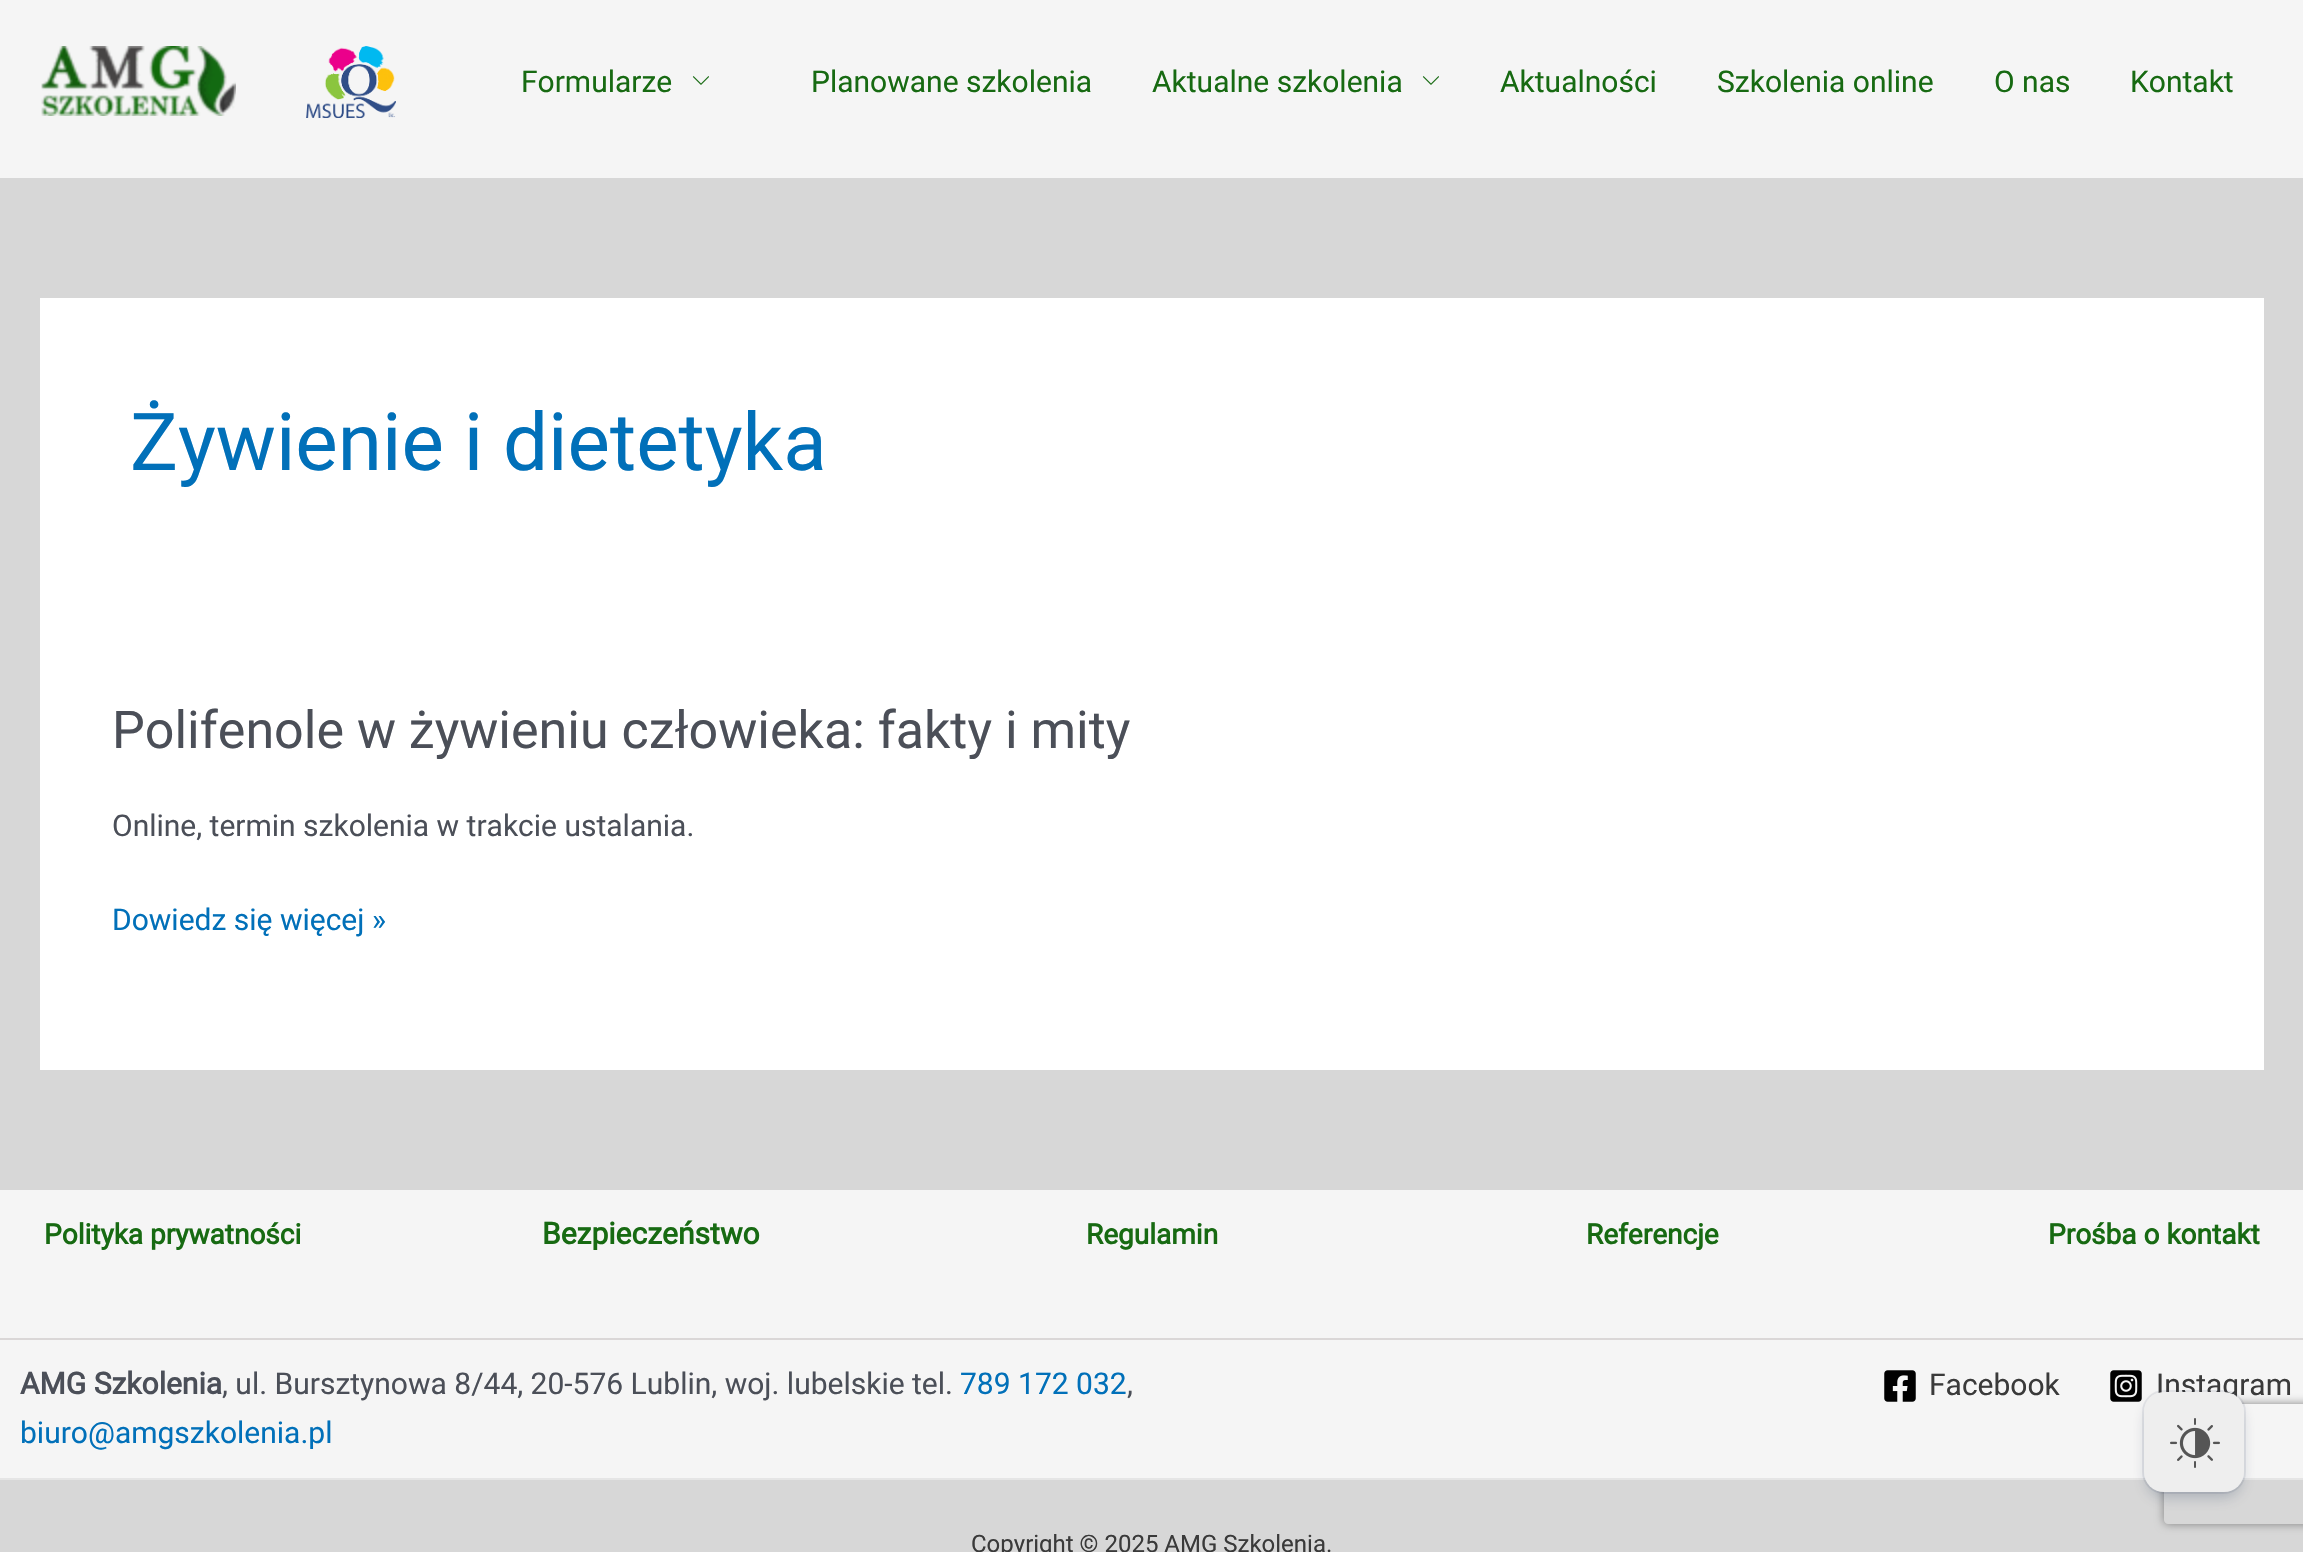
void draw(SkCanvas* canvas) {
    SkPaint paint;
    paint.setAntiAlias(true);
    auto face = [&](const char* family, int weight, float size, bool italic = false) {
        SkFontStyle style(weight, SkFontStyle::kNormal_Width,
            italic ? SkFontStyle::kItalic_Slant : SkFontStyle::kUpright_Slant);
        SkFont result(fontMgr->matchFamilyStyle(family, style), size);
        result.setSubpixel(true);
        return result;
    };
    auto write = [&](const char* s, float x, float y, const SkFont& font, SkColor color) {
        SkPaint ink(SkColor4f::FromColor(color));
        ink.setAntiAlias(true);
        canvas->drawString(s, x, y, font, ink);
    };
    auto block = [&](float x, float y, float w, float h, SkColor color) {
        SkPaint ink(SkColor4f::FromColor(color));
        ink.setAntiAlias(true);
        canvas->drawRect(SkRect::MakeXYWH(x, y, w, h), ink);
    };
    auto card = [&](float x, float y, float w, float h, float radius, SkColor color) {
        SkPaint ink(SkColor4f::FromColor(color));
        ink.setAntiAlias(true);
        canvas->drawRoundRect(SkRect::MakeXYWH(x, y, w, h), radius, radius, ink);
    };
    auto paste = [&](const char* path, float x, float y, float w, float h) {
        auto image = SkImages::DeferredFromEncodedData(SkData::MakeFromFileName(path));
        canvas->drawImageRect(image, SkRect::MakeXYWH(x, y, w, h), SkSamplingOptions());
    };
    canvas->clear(SkColorSetRGB(215, 215, 215));
    block(0, 0, 2303, 178, SkColorSetRGB(245, 245, 245));
    paste("pic1.png", 41, 46, 195, 70);
    paste("pic2.png", 306, 46, 90, 72);
    auto kFont1 = face("Roboto", 400, 30);
    write("Formularze", 521, 92, kFont1, SkColorSetRGB(23, 106, 18));
    paste("pic3.png", 692, 76, 17, 9);
    write("Planowane szkolenia", 811, 92, kFont1, SkColorSetRGB(23, 106, 18));
    write("Aktualne szkolenia", 1152, 92, kFont1, SkColorSetRGB(23, 106, 18));
    paste("pic3.png", 1422, 76, 17, 9);
    write("Aktualności", 1500, 92, kFont1, SkColorSetRGB(23, 106, 18));
    write("Szkolenia online", 1717, 92, kFont1, SkColorSetRGB(23, 106, 18));
    write("O nas", 1994, 92, kFont1, SkColorSetRGB(23, 106, 18));
    write("Kontakt", 2130, 92, kFont1, SkColorSetRGB(23, 106, 18));
    block(40, 298, 2224, 772, SK_ColorWHITE);
    auto kFont2 = face("Roboto", 400, 80);
    write("Żywienie i dietetyka", 130, 470, kFont2, SkColorSetRGB(1, 112, 185));
    auto kFont3 = face("Roboto", 400, 52);
    write("Polifenole w żywieniu człowieka: fakty i mity", 112, 748, kFont3, SkColorSetRGB(75, 79, 88));
    write("Online, termin szkolenia w trakcie ustalania.", 112, 836, kFont1, SkColorSetRGB(75, 79, 88));
    write("Dowiedz się więcej »", 112, 930, kFont1, SkColorSetRGB(1, 112, 185));
    block(0, 1190, 2303, 288, SkColorSetRGB(245, 245, 245));
    auto kFont4 = face("Roboto", 700, 28);
    write("Polityka prywatności", 44, 1244, kFont4, SkColorSetRGB(23, 106, 18));
    auto kFont5 = face("Roboto", 700, 30);
    write("Bezpieczeństwo", 542, 1244, kFont5, SkColorSetRGB(23, 106, 18));
    write("Regulamin", 1086, 1244, kFont4, SkColorSetRGB(23, 106, 18));
    write("Referencje", 1586, 1244, kFont4, SkColorSetRGB(23, 106, 18));
    write("Prośba o kontakt", 2048, 1244, kFont4, SkColorSetRGB(23, 106, 18));
    block(0, 1338, 2303, 2, SkColorSetRGB(218, 215, 215));
    write("AMG Szkolenia", 20, 1394, kFont5, SkColorSetRGB(75, 79, 88));
    write(", ul. Bursztynowa 8/44, 20-576 Lublin, woj. lubelskie tel.", 222, 1394, kFont1, SkColorSetRGB(75, 79, 88));
    write("789 172 032", 960, 1394, kFont1, SkColorSetRGB(1, 112, 185));
    write(",", 1127, 1394, kFont1, SkColorSetRGB(75, 79, 88));
    write("biuro@amgszkolenia.pl", 20, 1443, kFont1, SkColorSetRGB(1, 112, 185));
    paste("pic4.png", 1884, 1370, 32, 32);
    write("Facebook", 1929, 1395, kFont1, SkColorSetRGB(58, 58, 58));
    paste("pic5.png", 2110, 1370, 32, 32);
    write("Instagram", 2156, 1395, kFont1, SkColorSetRGB(58, 58, 58));
    block(0, 1478, 2303, 2, SkColorSetRGB(229, 229, 229));
    auto kFont6 = face("Roboto", 400, 24);
    write("Copyright © 2025 AMG Szkolenia.", 971, 1552, kFont6, SkColorSetRGB(58, 58, 58));
    canvas->save();
    canvas->clipPath(SkPathBuilder(SkPathFillType::kEvenOdd).moveTo(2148, 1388).lineTo(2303, 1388).lineTo(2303, 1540).lineTo(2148, 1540).close().moveTo(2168, 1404).lineTo(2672, 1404).cubicTo(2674, 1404, 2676, 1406, 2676, 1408).lineTo(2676, 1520).cubicTo(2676, 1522, 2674, 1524, 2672, 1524).lineTo(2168, 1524).cubicTo(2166, 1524, 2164, 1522, 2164, 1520).lineTo(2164, 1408).cubicTo(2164, 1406, 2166, 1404, 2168, 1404).close().detach(), true);
    paint.setColor(SkColorSetRGB(128, 128, 128));
    paint.setMaskFilter(SkMaskFilter::MakeBlur(kNormal_SkBlurStyle, 5));
    canvas->drawRoundRect(SkRect::MakeXYWH(2164, 1404, 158, 120), 4, 4, paint);
    paint.setMaskFilter(nullptr);
    canvas->restore();
    paint.setStyle(SkPaint::kStroke_Style);
    paint.setStrokeWidth(2);
    paint.setColor(SkColorSetARGB(20, 9, 30, 66));
    canvas->drawRoundRect(SkRect::MakeXYWH(2143, 1391, 102, 102), 21, 21, paint);
    paint.setStyle(SkPaint::kFill_Style);
    paint.setColor(SkColorSetARGB(64, 9, 30, 66));
    paint.setMaskFilter(SkMaskFilter::MakeBlur(kNormal_SkBlurStyle, 8));
    canvas->drawRoundRect(SkRect::MakeXYWH(2148, 1404, 92, 92), 16, 16, paint);
    paint.setMaskFilter(nullptr);
    card(2144, 1392, 100, 100, 20, SkColorSetRGB(238, 238, 238));
    paste("pic6.png", 2170, 1418, 50, 50);
}
